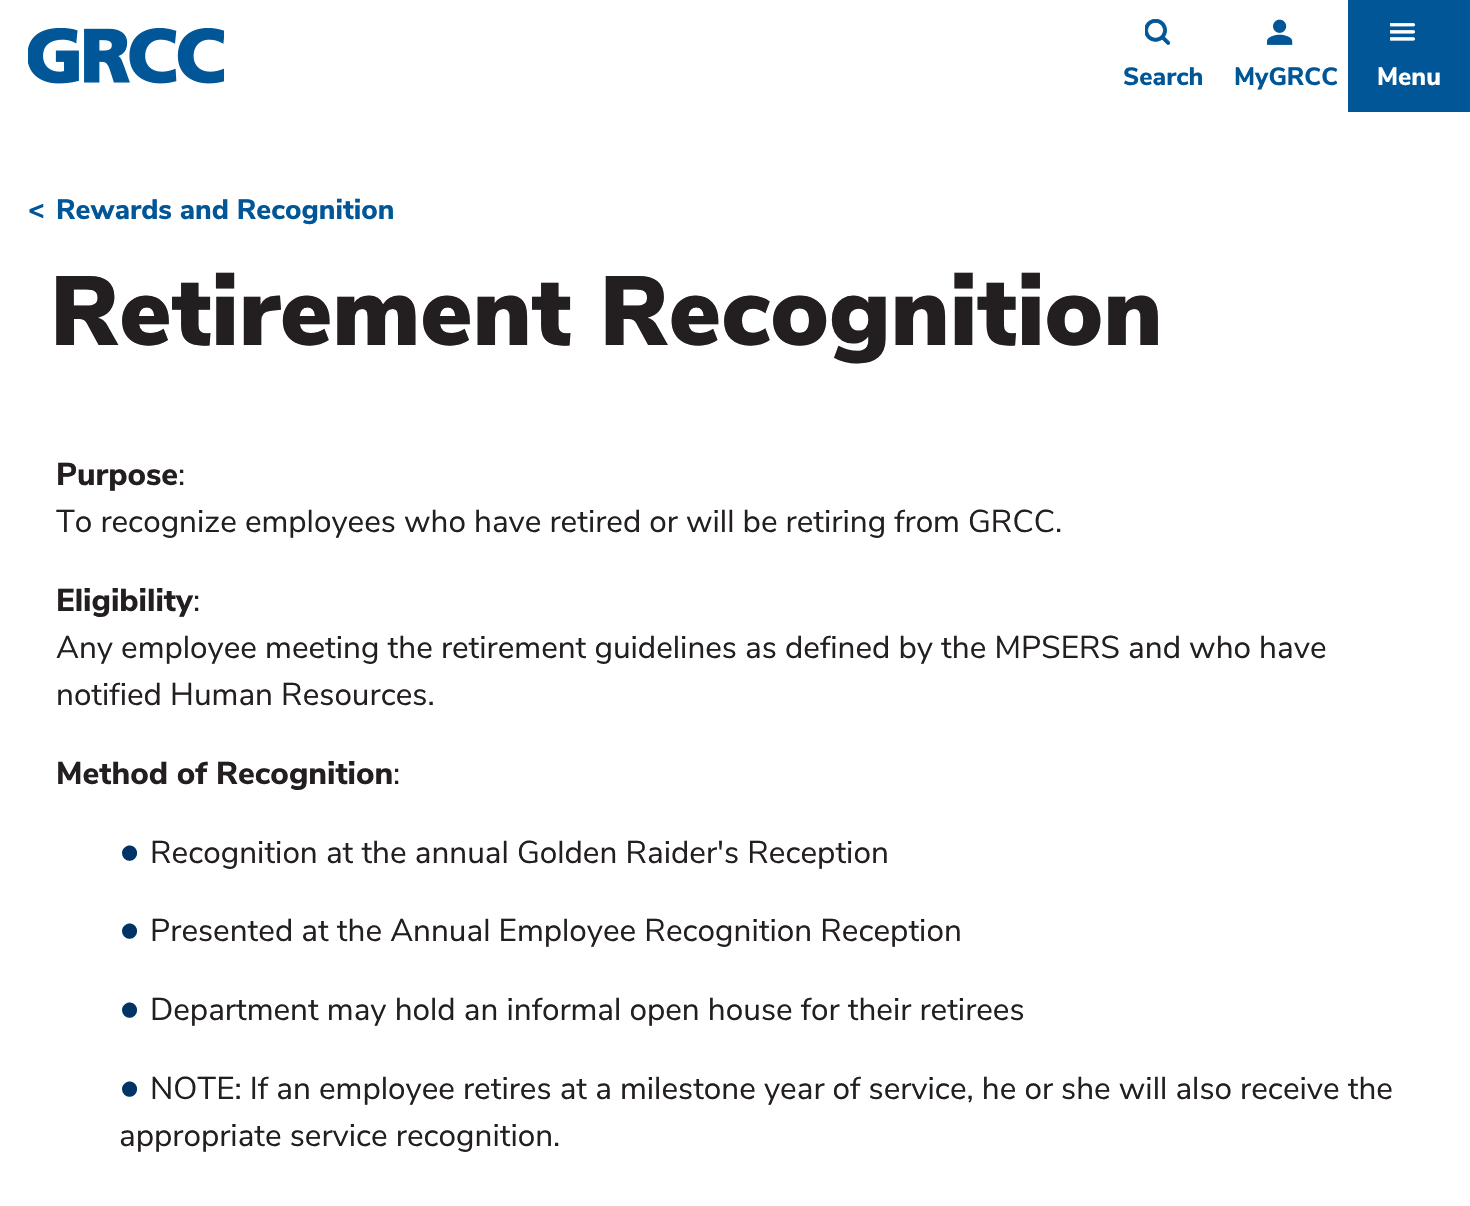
void draw(SkCanvas* canvas) {
    SkPaint paint;
    paint.setAntiAlias(true);
    auto face = [&](const char* family, int weight, float size, bool italic = false) {
        SkFontStyle style(weight, SkFontStyle::kNormal_Width,
            italic ? SkFontStyle::kItalic_Slant : SkFontStyle::kUpright_Slant);
        SkFont result(fontMgr->matchFamilyStyle(family, style), size);
        result.setSubpixel(true);
        return result;
    };
    auto write = [&](const char* s, float x, float y, const SkFont& font, SkColor color) {
        SkPaint ink(SkColor4f::FromColor(color));
        ink.setAntiAlias(true);
        canvas->drawString(s, x, y, font, ink);
    };
    auto block = [&](float x, float y, float w, float h, SkColor color) {
        SkPaint ink(SkColor4f::FromColor(color));
        ink.setAntiAlias(true);
        canvas->drawRect(SkRect::MakeXYWH(x, y, w, h), ink);
    };
    auto paste = [&](const char* path, float x, float y, float w, float h) {
        auto image = SkImages::DeferredFromEncodedData(SkData::MakeFromFileName(path));
        canvas->drawImageRect(image, SkRect::MakeXYWH(x, y, w, h), SkSamplingOptions());
    };
    canvas->clear(SK_ColorWHITE);
    paste("pic1.png", 28, 28, 196, 56);
    paste("pic2.png", 1145, 19, 26, 26);
    auto kFont1 = face("Nunito Sans", 800, 25);
    write("Search", 1123, 85, kFont1, SkColorSetRGB(0, 86, 151));
    paste("pic3.png", 1267, 19, 26, 26);
    write("MyGRCC", 1234, 85, kFont1, SkColorSetRGB(0, 86, 151));
    block(1348, 0, 122, 112, SkColorSetRGB(0, 86, 151));
    paste("pic4.png", 1390, 23, 26, 18);
    write("Menu", 1377, 85, kFont1, SK_ColorWHITE);
    auto kFont2 = face("Nunito Sans", 800, 28);
    write("<", 28, 219, kFont2, SkColorSetRGB(0, 86, 151));
    write("Rewards and Recognition", 56, 219, kFont2, SkColorSetRGB(0, 86, 151));
    auto kFont3 = face("Nunito Sans", 900, 98);
    write("Retirement Recognition", 50, 345, kFont3, SkColorSetRGB(35, 31, 32));
    auto kFont4 = face("Nunito Sans", 800, 31.5f);
    write("Purpose", 56, 485, kFont4, SkColorSetRGB(35, 31, 32));
    auto kFont5 = face("Nunito Sans", 400, 31.5f);
    write(":", 178, 485, kFont5, SkColorSetRGB(35, 31, 32));
    write("To recognize employees who have retired or will be retiring from GRCC.", 56, 532, kFont5, SkColorSetRGB(35, 31, 32));
    write("Eligibility", 56, 611, kFont4, SkColorSetRGB(35, 31, 32));
    write(":", 193, 611, kFont5, SkColorSetRGB(35, 31, 32));
    write("Any employee meeting the retirement guidelines as defined by the MPSERS and who have", 56, 658, kFont5, SkColorSetRGB(35, 31, 32));
    write("notified Human Resources.", 56, 705, kFont5, SkColorSetRGB(35, 31, 32));
    write("Method of Recognition", 56, 784, kFont4, SkColorSetRGB(35, 31, 32));
    write(":", 393, 784, kFont5, SkColorSetRGB(35, 31, 32));
    auto kFont6 = face("Liberation Sans", 700, 35);
    write("●", 119, 863, kFont6, SkColorSetRGB(0, 51, 102));
    write("Recognition at the annual Golden Raider's Reception", 150, 863, kFont5, SkColorSetRGB(35, 31, 32));
    write("●", 119, 941, kFont6, SkColorSetRGB(0, 51, 102));
    write("Presented at the Annual Employee Recognition Reception", 150, 941, kFont5, SkColorSetRGB(35, 31, 32));
    write("●", 119, 1020, kFont6, SkColorSetRGB(0, 51, 102));
    write("Department may hold an informal open house for their retirees", 150, 1020, kFont5, SkColorSetRGB(35, 31, 32));
    write("●", 119, 1099, kFont6, SkColorSetRGB(0, 51, 102));
    write("NOTE: If an employee retires at a milestone year of service, he or she will also receive the", 150, 1099, kFont5, SkColorSetRGB(35, 31, 32));
    write("appropriate service recognition.", 119, 1146, kFont5, SkColorSetRGB(35, 31, 32));
}
